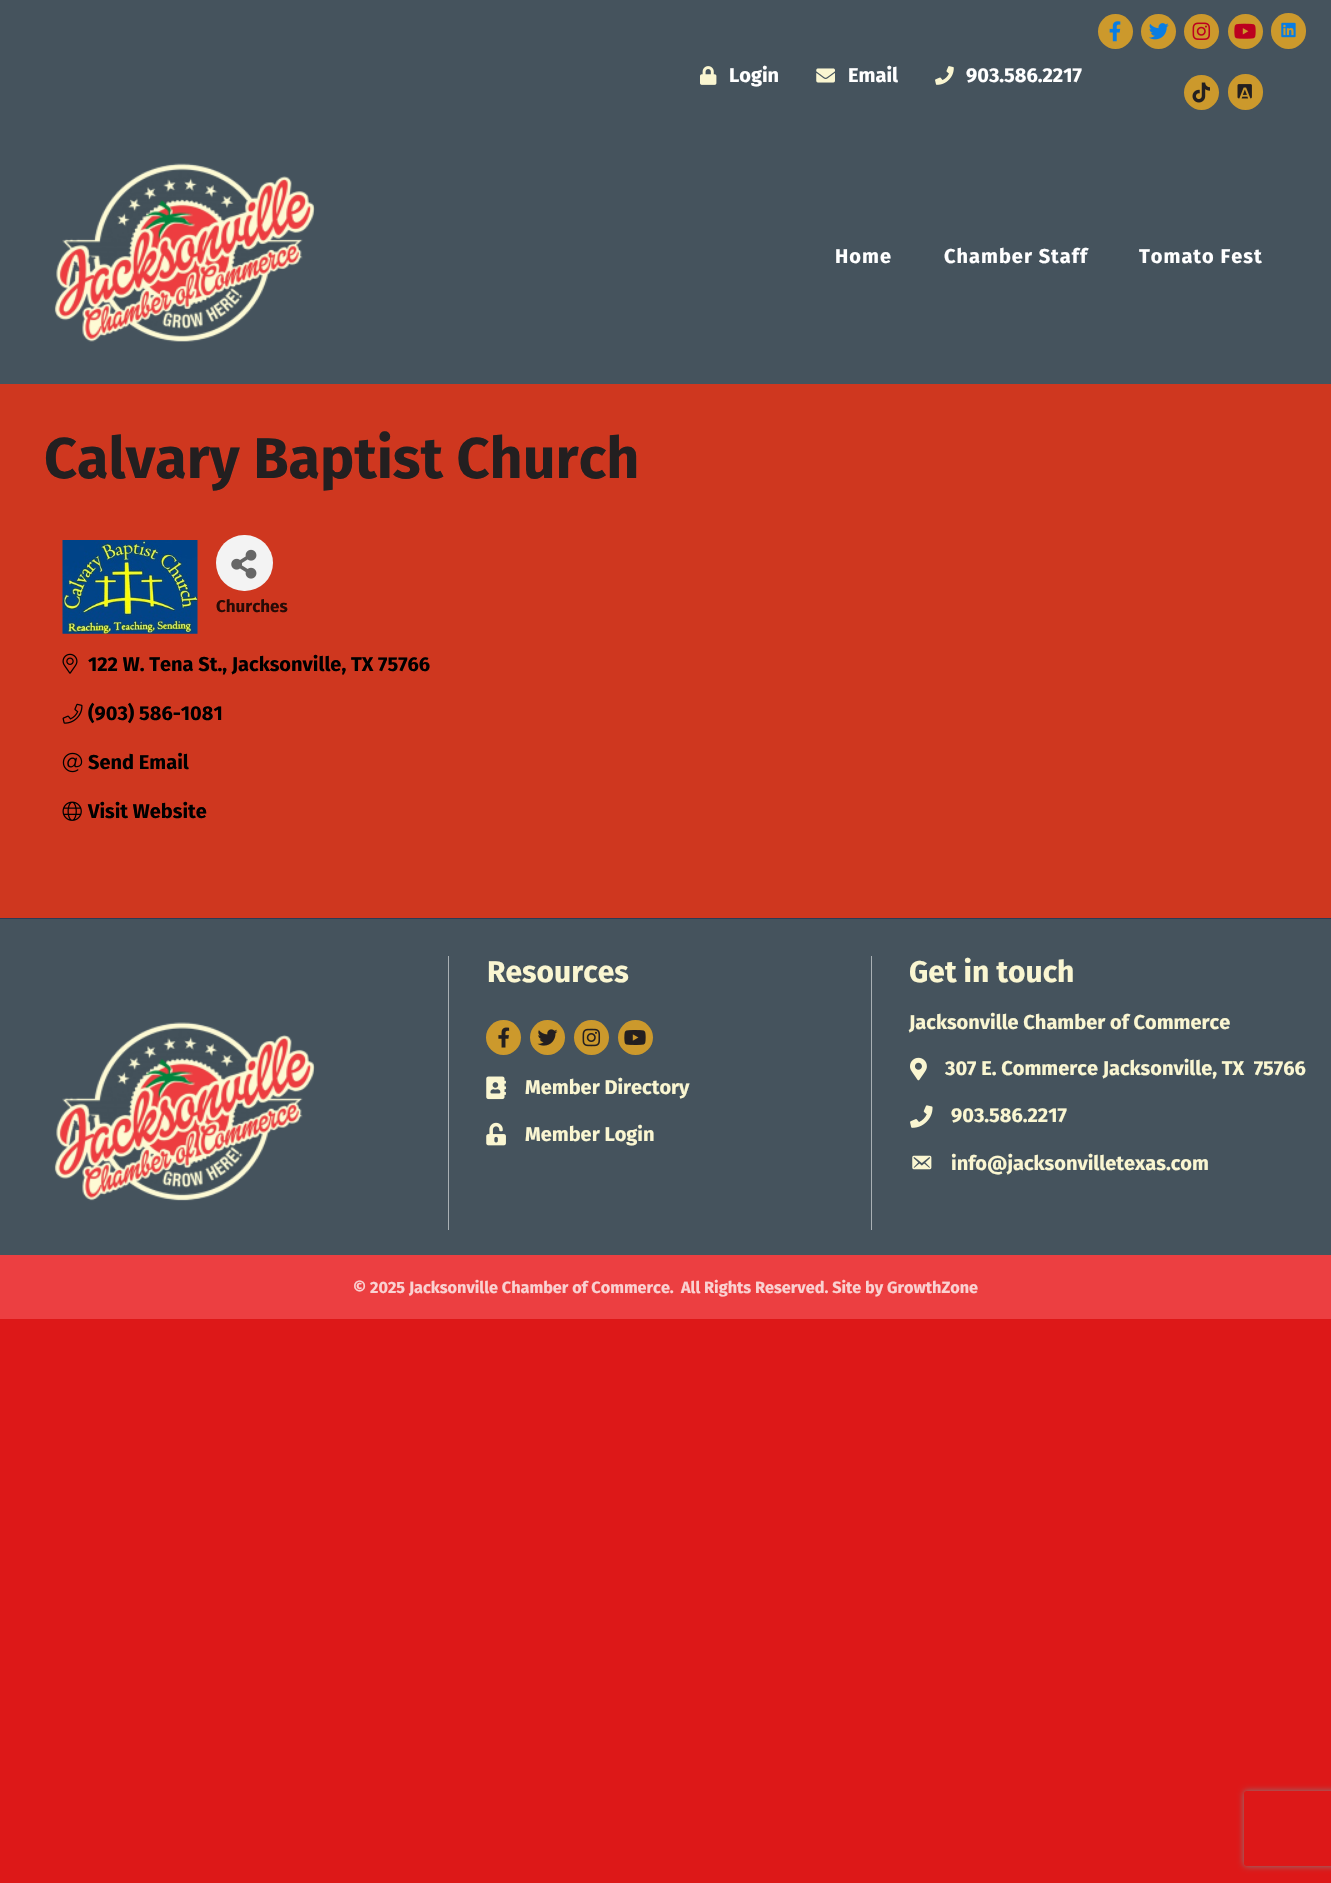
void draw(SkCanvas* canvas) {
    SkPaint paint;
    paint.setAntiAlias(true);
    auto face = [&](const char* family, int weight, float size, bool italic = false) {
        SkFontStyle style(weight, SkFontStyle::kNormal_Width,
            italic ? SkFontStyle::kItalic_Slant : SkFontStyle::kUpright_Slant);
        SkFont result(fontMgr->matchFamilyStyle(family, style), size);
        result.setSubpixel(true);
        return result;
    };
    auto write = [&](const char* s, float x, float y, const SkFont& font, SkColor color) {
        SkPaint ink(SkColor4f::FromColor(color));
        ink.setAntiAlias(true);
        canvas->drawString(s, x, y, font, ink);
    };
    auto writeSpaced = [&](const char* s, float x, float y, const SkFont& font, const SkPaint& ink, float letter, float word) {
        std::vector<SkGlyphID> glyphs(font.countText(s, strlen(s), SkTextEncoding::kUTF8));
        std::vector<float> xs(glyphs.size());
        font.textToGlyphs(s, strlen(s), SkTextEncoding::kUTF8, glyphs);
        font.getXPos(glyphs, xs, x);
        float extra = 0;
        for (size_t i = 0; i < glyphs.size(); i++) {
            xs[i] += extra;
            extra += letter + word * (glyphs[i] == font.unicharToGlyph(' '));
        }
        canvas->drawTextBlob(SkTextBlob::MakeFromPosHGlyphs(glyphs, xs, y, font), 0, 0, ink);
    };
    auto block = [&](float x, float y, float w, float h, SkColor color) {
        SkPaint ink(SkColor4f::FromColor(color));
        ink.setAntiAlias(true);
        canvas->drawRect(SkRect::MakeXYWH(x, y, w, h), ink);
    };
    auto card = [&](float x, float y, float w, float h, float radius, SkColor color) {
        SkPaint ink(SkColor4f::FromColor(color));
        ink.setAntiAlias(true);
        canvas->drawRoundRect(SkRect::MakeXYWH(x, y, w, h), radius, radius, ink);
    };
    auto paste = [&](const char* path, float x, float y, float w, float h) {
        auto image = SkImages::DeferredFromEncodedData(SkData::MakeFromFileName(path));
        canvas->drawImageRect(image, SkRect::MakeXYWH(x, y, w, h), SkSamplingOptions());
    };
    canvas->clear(SkColorSetRGB(221, 24, 24));
    block(0, 0, 1331, 384, SkColorSetRGB(69, 83, 93));
    paste("pic1.png", 700, 66, 17, 19);
    auto kFont1 = face("Fira Sans", 700, 20);
    write("Login", 729, 82, kFont1, SK_ColorWHITE);
    paste("pic2.png", 816, 68, 19, 15);
    write("Email", 848, 82, kFont1, SK_ColorWHITE);
    paste("pic3.png", 935, 66, 19, 19);
    write("903.586.2217", 966, 82, kFont1, SK_ColorWHITE);
    paint.setColor(SkColorSetRGB(204, 153, 44));
    canvas->drawCircle(1115.5f, 31.5f, 17.5f, paint);
    paste("pic4.png", 1109, 21, 12, 21);
    canvas->drawCircle(1158.5f, 31.5f, 17.5f, paint);
    paste("pic5.png", 1149, 23, 20, 17);
    canvas->drawCircle(1201.5f, 31.5f, 17.5f, paint);
    paste("pic6.png", 1192, 22, 19, 18);
    canvas->drawCircle(1245.5f, 31.5f, 17.5f, paint);
    paste("pic7.png", 1234, 23, 22, 16);
    card(1271, 13, 35, 36, 17.5f, SkColorSetRGB(204, 153, 44));
    paste("pic8.png", 1281, 22, 15, 16);
    canvas->drawCircle(1201.5f, 92.5f, 17.5f, paint);
    paste("pic9.png", 1192, 82, 18, 21);
    card(1228, 74, 35, 36, 17.5f, SkColorSetRGB(204, 153, 44));
    paste("pic10.png", 1237, 84, 15, 15);
    paste("pic11.png", 54, 163, 261, 179);
    paint.setColor(SK_ColorWHITE);
    writeSpaced("Home", 835, 263, kFont1, paint, 1, 0);
    writeSpaced("Chamber Staff", 944, 263, kFont1, paint, 1, 0);
    writeSpaced("Tomato Fest", 1139, 263, kFont1, paint, 1, 0);
    block(0, 384, 1331, 534, SkColorSetRGB(207, 55, 31));
    auto kFont2 = face("Fira Sans", 700, 57.5f);
    write("Calvary Baptist Church", 44, 478, kFont2, SkColorSetRGB(35, 31, 32));
    paste("pic12.png", 62, 540, 136, 94);
    card(216, 535, 57, 56, 28, SkColorSetRGB(243, 243, 243));
    paste("pic13.png", 231, 549, 26, 30);
    auto kFont3 = face("Fira Sans", 700, 17);
    write("Churches", 216, 612, kFont3, SkColorSetRGB(41, 11, 6));
    paste("pic14.png", 62, 653, 16, 21);
    write("122 W. Tena St., Jacksonville, TX 75766", 88, 671, kFont1, SK_ColorBLACK);
    paste("pic15.png", 62, 703, 21, 21);
    write("(903) 586-1081", 88, 720, kFont1, SK_ColorBLACK);
    paste("pic16.png", 62, 752, 21, 21);
    write("Send Email", 88, 769, kFont1, SK_ColorBLACK);
    paste("pic17.png", 62, 801, 20, 20);
    write("Visit Website", 88, 818, kFont1, SK_ColorBLACK);
    block(0, 919, 1331, 336, SkColorSetRGB(69, 83, 93));
    block(0, 918, 1331, 1, SkColorSetRGB(44, 58, 86));
    paste("pic18.png", 54, 1022, 261, 179);
    block(448, 956, 1, 274, SkColorSetRGB(169, 176, 180));
    auto kFont4 = face("Fira Sans", 700, 30);
    write("Resources", 487, 982, kFont4, SkColorSetRGB(250, 246, 209));
    paint.setColor(SkColorSetRGB(204, 153, 44));
    canvas->drawCircle(503.5f, 1037.5f, 17.5f, paint);
    paste("pic19.png", 498, 1027, 12, 21);
    canvas->drawCircle(547.5f, 1037.5f, 17.5f, paint);
    paste("pic20.png", 537, 1029, 21, 17);
    canvas->drawCircle(591.5f, 1037.5f, 17.5f, paint);
    paste("pic21.png", 582, 1028, 19, 19);
    canvas->drawCircle(635.5f, 1037.5f, 17.5f, paint);
    paste("pic22.png", 624, 1030, 22, 15);
    paste("pic23.png", 486, 1076, 20, 24);
    write("Member Directory", 525, 1094, kFont1, SkColorSetRGB(250, 246, 209));
    paste("pic24.png", 486, 1122, 20, 24);
    write("Member Login", 525, 1141, kFont1, SkColorSetRGB(250, 246, 209));
    block(871, 956, 1, 274, SkColorSetRGB(169, 176, 180));
    write("Get in touch", 909, 982, kFont4, SkColorSetRGB(250, 246, 209));
    write("Jacksonville Chamber of Commerce", 909, 1029, kFont1, SkColorSetRGB(250, 246, 209));
    paste("pic25.png", 910, 1057, 17, 24);
    write("307 E. Commerce Jacksonville, TX  75766", 945, 1075, kFont1, SkColorSetRGB(250, 246, 209));
    paste("pic26.png", 910, 1105, 23, 23);
    write("903.586.2217", 951, 1122, kFont1, SkColorSetRGB(250, 246, 209));
    paste("pic27.png", 912, 1155, 20, 15);
    write("info@jacksonvilletexas.com", 951, 1170, kFont1, SkColorSetRGB(250, 246, 209));
    block(0, 1255, 1331, 64, SkColorSetRGB(236, 63, 65));
    auto kFont5 = face("Fira Sans", 700, 16.25f);
    write("© 2025 Jacksonville Chamber of Commerce.", 353, 1293, kFont5, SkColorSetRGB(250, 209, 209));
    write("All Rights Reserved. Site by GrowthZone", 681, 1293, kFont5, SkColorSetRGB(250, 209, 209));
    canvas->save();
    canvas->clipPath(SkPathBuilder(SkPathFillType::kEvenOdd).moveTo(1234, 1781).lineTo(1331, 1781).lineTo(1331, 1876).lineTo(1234, 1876).close().moveTo(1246.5f, 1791).lineTo(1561.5f, 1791).cubicTo(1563, 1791, 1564, 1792, 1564, 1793.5f).lineTo(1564, 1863.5f).cubicTo(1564, 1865, 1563, 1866, 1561.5f, 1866).lineTo(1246.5f, 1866).cubicTo(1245, 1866, 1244, 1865, 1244, 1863.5f).lineTo(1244, 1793.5f).cubicTo(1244, 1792, 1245, 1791, 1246.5f, 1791).close().detach(), true);
    paint.setColor(SkColorSetRGB(128, 128, 128));
    paint.setMaskFilter(SkMaskFilter::MakeBlur(kNormal_SkBlurStyle, 3));
    canvas->drawRoundRect(SkRect::MakeXYWH(1244, 1791, 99, 75), 2.5f, 2.5f, paint);
    paint.setMaskFilter(nullptr);
    canvas->restore();
}
